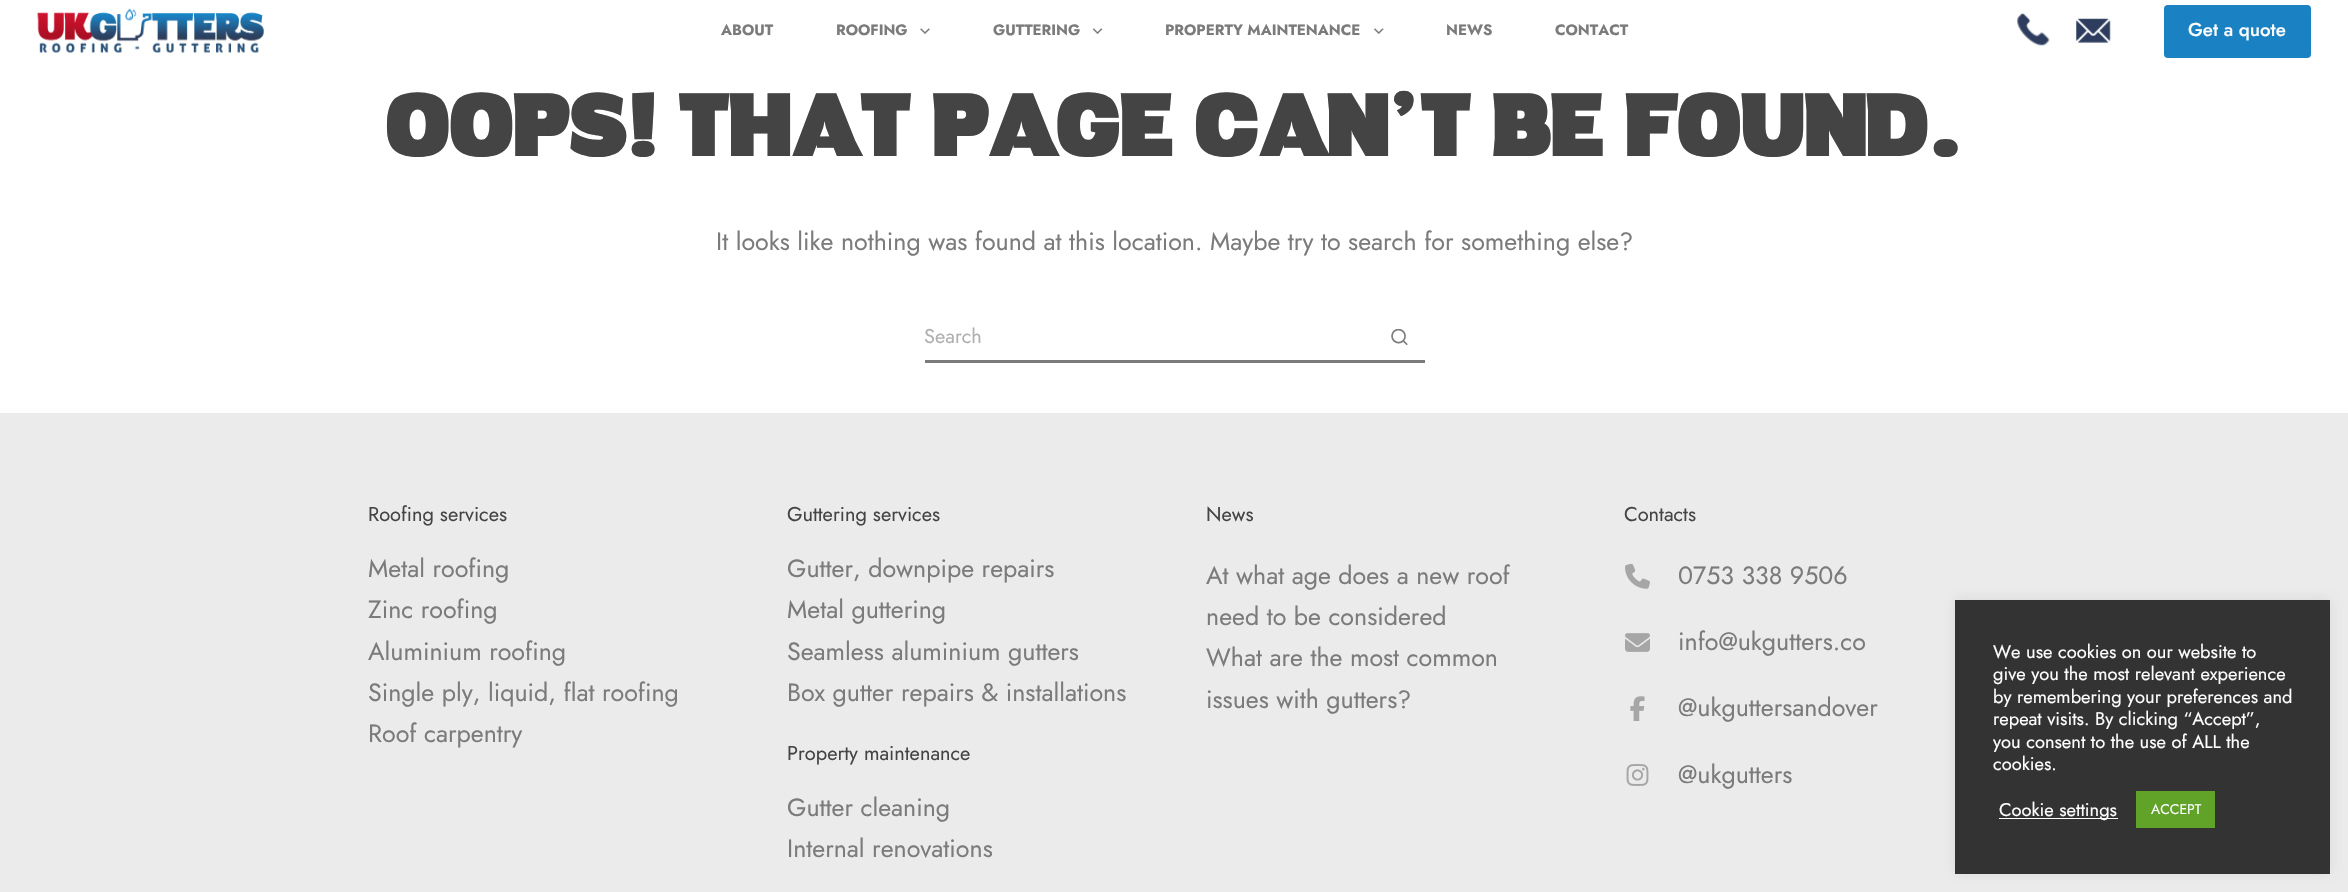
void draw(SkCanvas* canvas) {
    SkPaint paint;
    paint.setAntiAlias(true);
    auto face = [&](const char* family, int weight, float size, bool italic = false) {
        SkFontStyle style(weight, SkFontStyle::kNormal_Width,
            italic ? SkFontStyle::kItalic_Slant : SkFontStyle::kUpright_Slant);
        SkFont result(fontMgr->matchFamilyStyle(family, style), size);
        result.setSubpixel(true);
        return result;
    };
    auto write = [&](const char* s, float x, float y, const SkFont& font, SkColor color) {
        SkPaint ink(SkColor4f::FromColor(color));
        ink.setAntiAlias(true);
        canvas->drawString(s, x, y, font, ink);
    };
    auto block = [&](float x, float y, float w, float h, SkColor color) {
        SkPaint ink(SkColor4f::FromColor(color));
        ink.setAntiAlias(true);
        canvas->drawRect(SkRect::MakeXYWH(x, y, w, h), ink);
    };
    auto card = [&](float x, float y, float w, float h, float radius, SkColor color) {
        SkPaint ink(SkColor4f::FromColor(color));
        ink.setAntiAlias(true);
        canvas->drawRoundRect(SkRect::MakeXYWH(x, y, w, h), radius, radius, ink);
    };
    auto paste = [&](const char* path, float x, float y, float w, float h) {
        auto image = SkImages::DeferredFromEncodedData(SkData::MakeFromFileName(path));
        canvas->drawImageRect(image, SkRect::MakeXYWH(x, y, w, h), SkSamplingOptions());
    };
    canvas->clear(SK_ColorWHITE);
    paste("pic1.png", 37, 8, 227, 45);
    auto kFont1 = face("Jost", 700, 15);
    write("ABOUT", 721, 35, kFont1, SkColorSetRGB(123, 123, 123));
    write("ROOFING", 836, 35, kFont1, SkColorSetRGB(123, 123, 123));
    paste("pic2.png", 920, 28, 10, 6);
    write("GUTTERING", 993, 35, kFont1, SkColorSetRGB(123, 123, 123));
    paste("pic3.png", 1093, 28, 10, 6);
    write("PROPERTY MAINTENANCE", 1165, 35, kFont1, SkColorSetRGB(123, 123, 123));
    paste("pic4.png", 1374, 28, 10, 6);
    write("NEWS", 1446, 35, kFont1, SkColorSetRGB(123, 123, 123));
    write("CONTACT", 1555, 35, kFont1, SkColorSetRGB(123, 123, 123));
    paste("pic5.png", 2017, 13, 33, 33);
    paste("pic6.png", 2076, 18, 35, 25);
    card(2164, 5, 147, 53, 4, SkColorSetRGB(26, 129, 195));
    auto kFont2 = face("Jost", 500, 18.75f);
    write("Get a quote", 2188, 36, kFont2, SK_ColorWHITE);
    auto kFont3 = face("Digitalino", 900, 87.5f);
    write("OOPS! THAT PAGE CAN’T BE FOUND.", 388, 156, kFont3, SkColorSetRGB(68, 68, 68));
    auto kFont4 = face("Jost", 400, 25);
    write("It looks like nothing was found at this location. Maybe try to search for something else?", 716, 250, kFont4, SkColorSetRGB(123, 123, 123));
    block(925, 360, 500, 3, SkColorSetRGB(123, 123, 123));
    auto kFont5 = face("Jost", 400, 20);
    write("Search", 924, 343, kFont5, SkColorSetRGB(176, 176, 176));
    paste("pic7.png", 1391, 329, 17, 16);
    block(0, 413, 2348, 479, SkColorSetRGB(235, 235, 235));
    write("Roofing services", 368, 521, kFont5, SkColorSetRGB(68, 68, 68));
    write("Metal roofing", 368, 577, kFont4, SkColorSetRGB(123, 123, 123));
    write("Zinc roofing", 368, 618, kFont4, SkColorSetRGB(123, 123, 123));
    write("Aluminium roofing", 368, 660, kFont4, SkColorSetRGB(123, 123, 123));
    write("Single ply, liquid, flat roofing", 368, 701, kFont4, SkColorSetRGB(123, 123, 123));
    write("Roof carpentry", 368, 742, kFont4, SkColorSetRGB(123, 123, 123));
    write("Guttering services", 787, 521, kFont5, SkColorSetRGB(68, 68, 68));
    write("Gutter, downpipe repairs", 787, 577, kFont4, SkColorSetRGB(123, 123, 123));
    write("Metal guttering", 787, 618, kFont4, SkColorSetRGB(123, 123, 123));
    write("Seamless aluminium gutters", 787, 660, kFont4, SkColorSetRGB(123, 123, 123));
    write("Box gutter repairs & installations", 787, 701, kFont4, SkColorSetRGB(123, 123, 123));
    write("Property maintenance", 787, 760, kFont5, SkColorSetRGB(68, 68, 68));
    write("Gutter cleaning", 787, 816, kFont4, SkColorSetRGB(123, 123, 123));
    write("Internal renovations", 787, 857, kFont4, SkColorSetRGB(123, 123, 123));
    write("News", 1206, 521, kFont5, SkColorSetRGB(68, 68, 68));
    write("At what age does a new roof", 1206, 584, kFont4, SkColorSetRGB(123, 123, 123));
    write("need to be considered", 1206, 625, kFont4, SkColorSetRGB(123, 123, 123));
    write("What are the most common", 1206, 666, kFont4, SkColorSetRGB(123, 123, 123));
    write("issues with gutters?", 1206, 708, kFont4, SkColorSetRGB(123, 123, 123));
    write("Contacts", 1624, 521, kFont5, SkColorSetRGB(68, 68, 68));
    paste("pic8.png", 1625, 564, 25, 25);
    write("0753 338 9506", 1678, 584, kFont4, SkColorSetRGB(123, 123, 123));
    paste("pic9.png", 1625, 633, 25, 19);
    write("info@ukgutters.co", 1678, 650, kFont4, SkColorSetRGB(123, 123, 123));
    paste("pic10.png", 1630, 696, 15, 25);
    write("@ukguttersandover", 1678, 716, kFont4, SkColorSetRGB(123, 123, 123));
    paste("pic11.png", 1626, 764, 23, 22);
    write("@ukgutters", 1678, 783, kFont4, SkColorSetRGB(123, 123, 123));
    paint.setColor(SkColorSetARGB(77, 172, 171, 171));
    paint.setMaskFilter(SkMaskFilter::MakeBlur(kNormal_SkBlurStyle, 6));
    canvas->drawRect(SkRect::MakeXYWH(1955, 599, 375, 274), paint);
    paint.setMaskFilter(nullptr);
    block(1955, 600, 375, 274, SkColorSetRGB(51, 51, 51));
    auto kFont6 = face("Jost", 400, 18.3f);
    write("We use cookies on our website to", 1993, 658, kFont6, SK_ColorWHITE);
    write("give you the most relevant experience", 1993, 680, kFont6, SK_ColorWHITE);
    write("by remembering your preferences and", 1993, 703, kFont6, SK_ColorWHITE);
    write("repeat visits. By clicking “Accept”,", 1993, 725, kFont6, SK_ColorWHITE);
    write("you consent to the use of ALL the", 1993, 748, kFont6, SK_ColorWHITE);
    write("cookies.", 1993, 770, kFont6, SK_ColorWHITE);
    block(1999, 818, 119, 1, SK_ColorWHITE);
    write("Cookie settings", 1999, 816, kFont6, SK_ColorWHITE);
    block(2136, 791, 79, 37, SkColorSetRGB(97, 162, 41));
    auto kFont7 = face("Jost", 400, 14);
    write("ACCEPT", 2151, 814, kFont7, SK_ColorWHITE);
}
